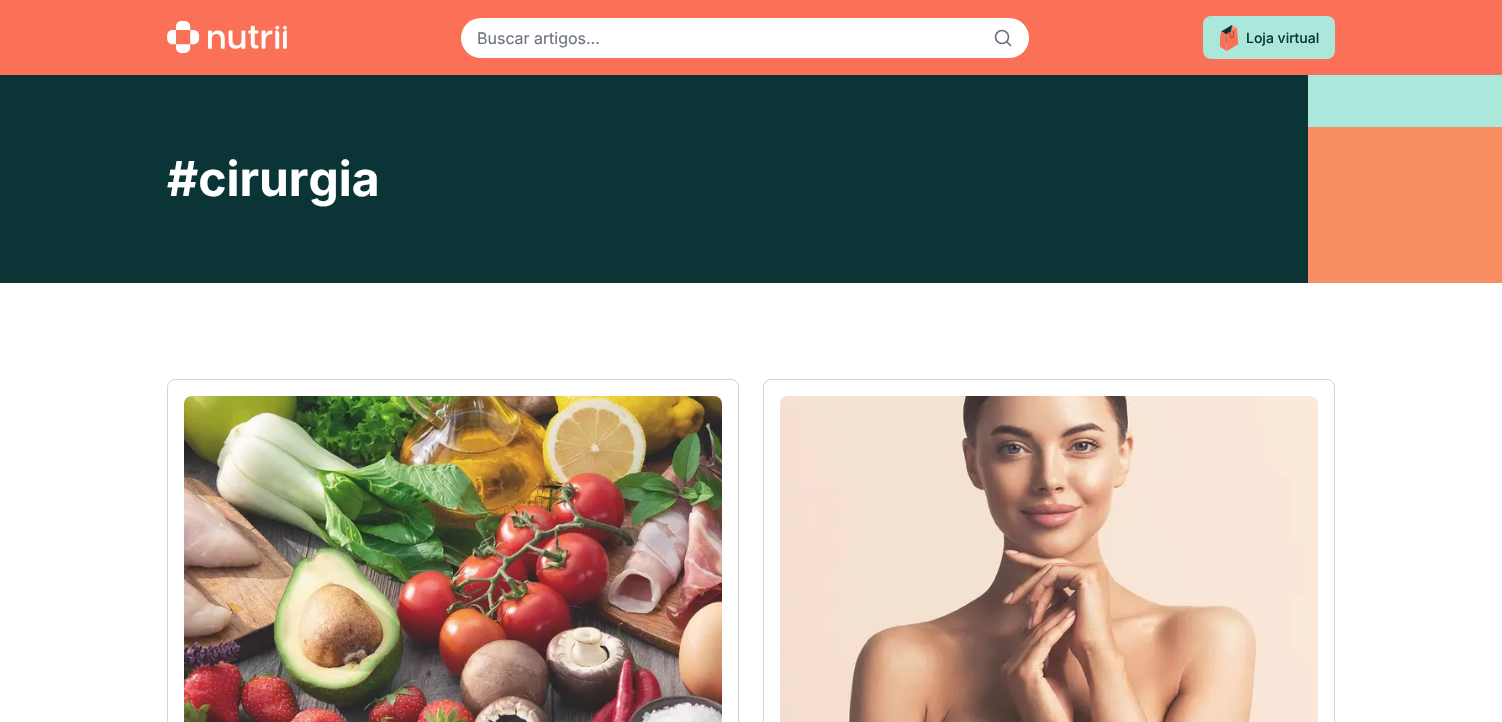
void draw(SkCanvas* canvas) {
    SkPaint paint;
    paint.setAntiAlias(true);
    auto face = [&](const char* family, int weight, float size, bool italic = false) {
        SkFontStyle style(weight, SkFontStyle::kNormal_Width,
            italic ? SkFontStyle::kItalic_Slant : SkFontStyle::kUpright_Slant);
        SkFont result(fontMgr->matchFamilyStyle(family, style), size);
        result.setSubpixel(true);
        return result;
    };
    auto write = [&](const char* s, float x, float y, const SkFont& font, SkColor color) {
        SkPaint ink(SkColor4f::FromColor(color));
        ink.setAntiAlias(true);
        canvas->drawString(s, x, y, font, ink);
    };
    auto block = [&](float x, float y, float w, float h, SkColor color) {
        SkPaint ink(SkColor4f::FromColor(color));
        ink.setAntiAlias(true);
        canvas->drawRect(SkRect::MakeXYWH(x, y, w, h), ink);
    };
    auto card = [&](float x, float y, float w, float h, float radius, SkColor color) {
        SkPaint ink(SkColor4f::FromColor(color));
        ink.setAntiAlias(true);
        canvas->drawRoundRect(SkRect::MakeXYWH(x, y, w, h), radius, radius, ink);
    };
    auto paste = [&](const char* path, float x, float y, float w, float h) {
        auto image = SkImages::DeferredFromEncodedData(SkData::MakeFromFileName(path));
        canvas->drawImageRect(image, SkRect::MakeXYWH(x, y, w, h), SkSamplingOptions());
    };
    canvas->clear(SK_ColorWHITE);
    block(0, 0, 1502, 75, SkColorSetRGB(250, 113, 87));
    paste("pic1.png", 167, 21, 120, 32);
    card(461, 18, 568, 40, 20, SK_ColorWHITE);
    auto kFont1 = face("Inter", 400, 16);
    write("Buscar artigos...", 477, 44, kFont1, SkColorSetRGB(107, 114, 128));
    paint.setStyle(SkPaint::kStroke_Style);
    paint.setStrokeWidth(1.7f);
    paint.setColor(SkColorSetRGB(107, 114, 128));
    canvas->drawCircle(1002, 37, 6.5f, paint);
    paint.setStrokeCap(SkPaint::kRound_Cap);
    paint.setStrokeJoin(SkPaint::kRound_Join);
    canvas->drawPath(SkPathBuilder().moveTo(1010.5f, 45.5f).lineTo(1007, 42).detach(), paint);
    card(1203, 16, 132, 43, 8, SkColorSetRGB(171, 231, 219));
    paste("pic2.png", 1220, 25, 18, 26);
    auto kFont2 = face("Inter", 500, 14);
    write("Loja virtual", 1246, 43, kFont2, SkColorSetRGB(11, 52, 55));
    block(0, 75, 1308, 208, SkColorSetRGB(11, 52, 55));
    block(1308, 75, 194, 52, SkColorSetRGB(171, 231, 219));
    auto kFont3 = face("Inter", 700, 48);
    write("#cirurgia", 167, 196, kFont3, SK_ColorWHITE);
    block(1308, 127, 194, 156, SkColorSetRGB(249, 142, 98));
    paint.setStrokeWidth(1);
    paint.setStrokeCap(SkPaint::kButt_Cap);
    paint.setStrokeJoin(SkPaint::kMiter_Join);
    paint.setColor(SkColorSetRGB(208, 213, 221));
    canvas->drawRoundRect(SkRect::MakeXYWH(167.5f, 379.5f, 571, 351), 7.5f, 7.5f, paint);
    paste("pic3.png", 184, 396, 538, 326);
    canvas->drawRoundRect(SkRect::MakeXYWH(763.5f, 379.5f, 571, 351), 7.5f, 7.5f, paint);
    paste("pic4.png", 780, 396, 538, 326);
}
